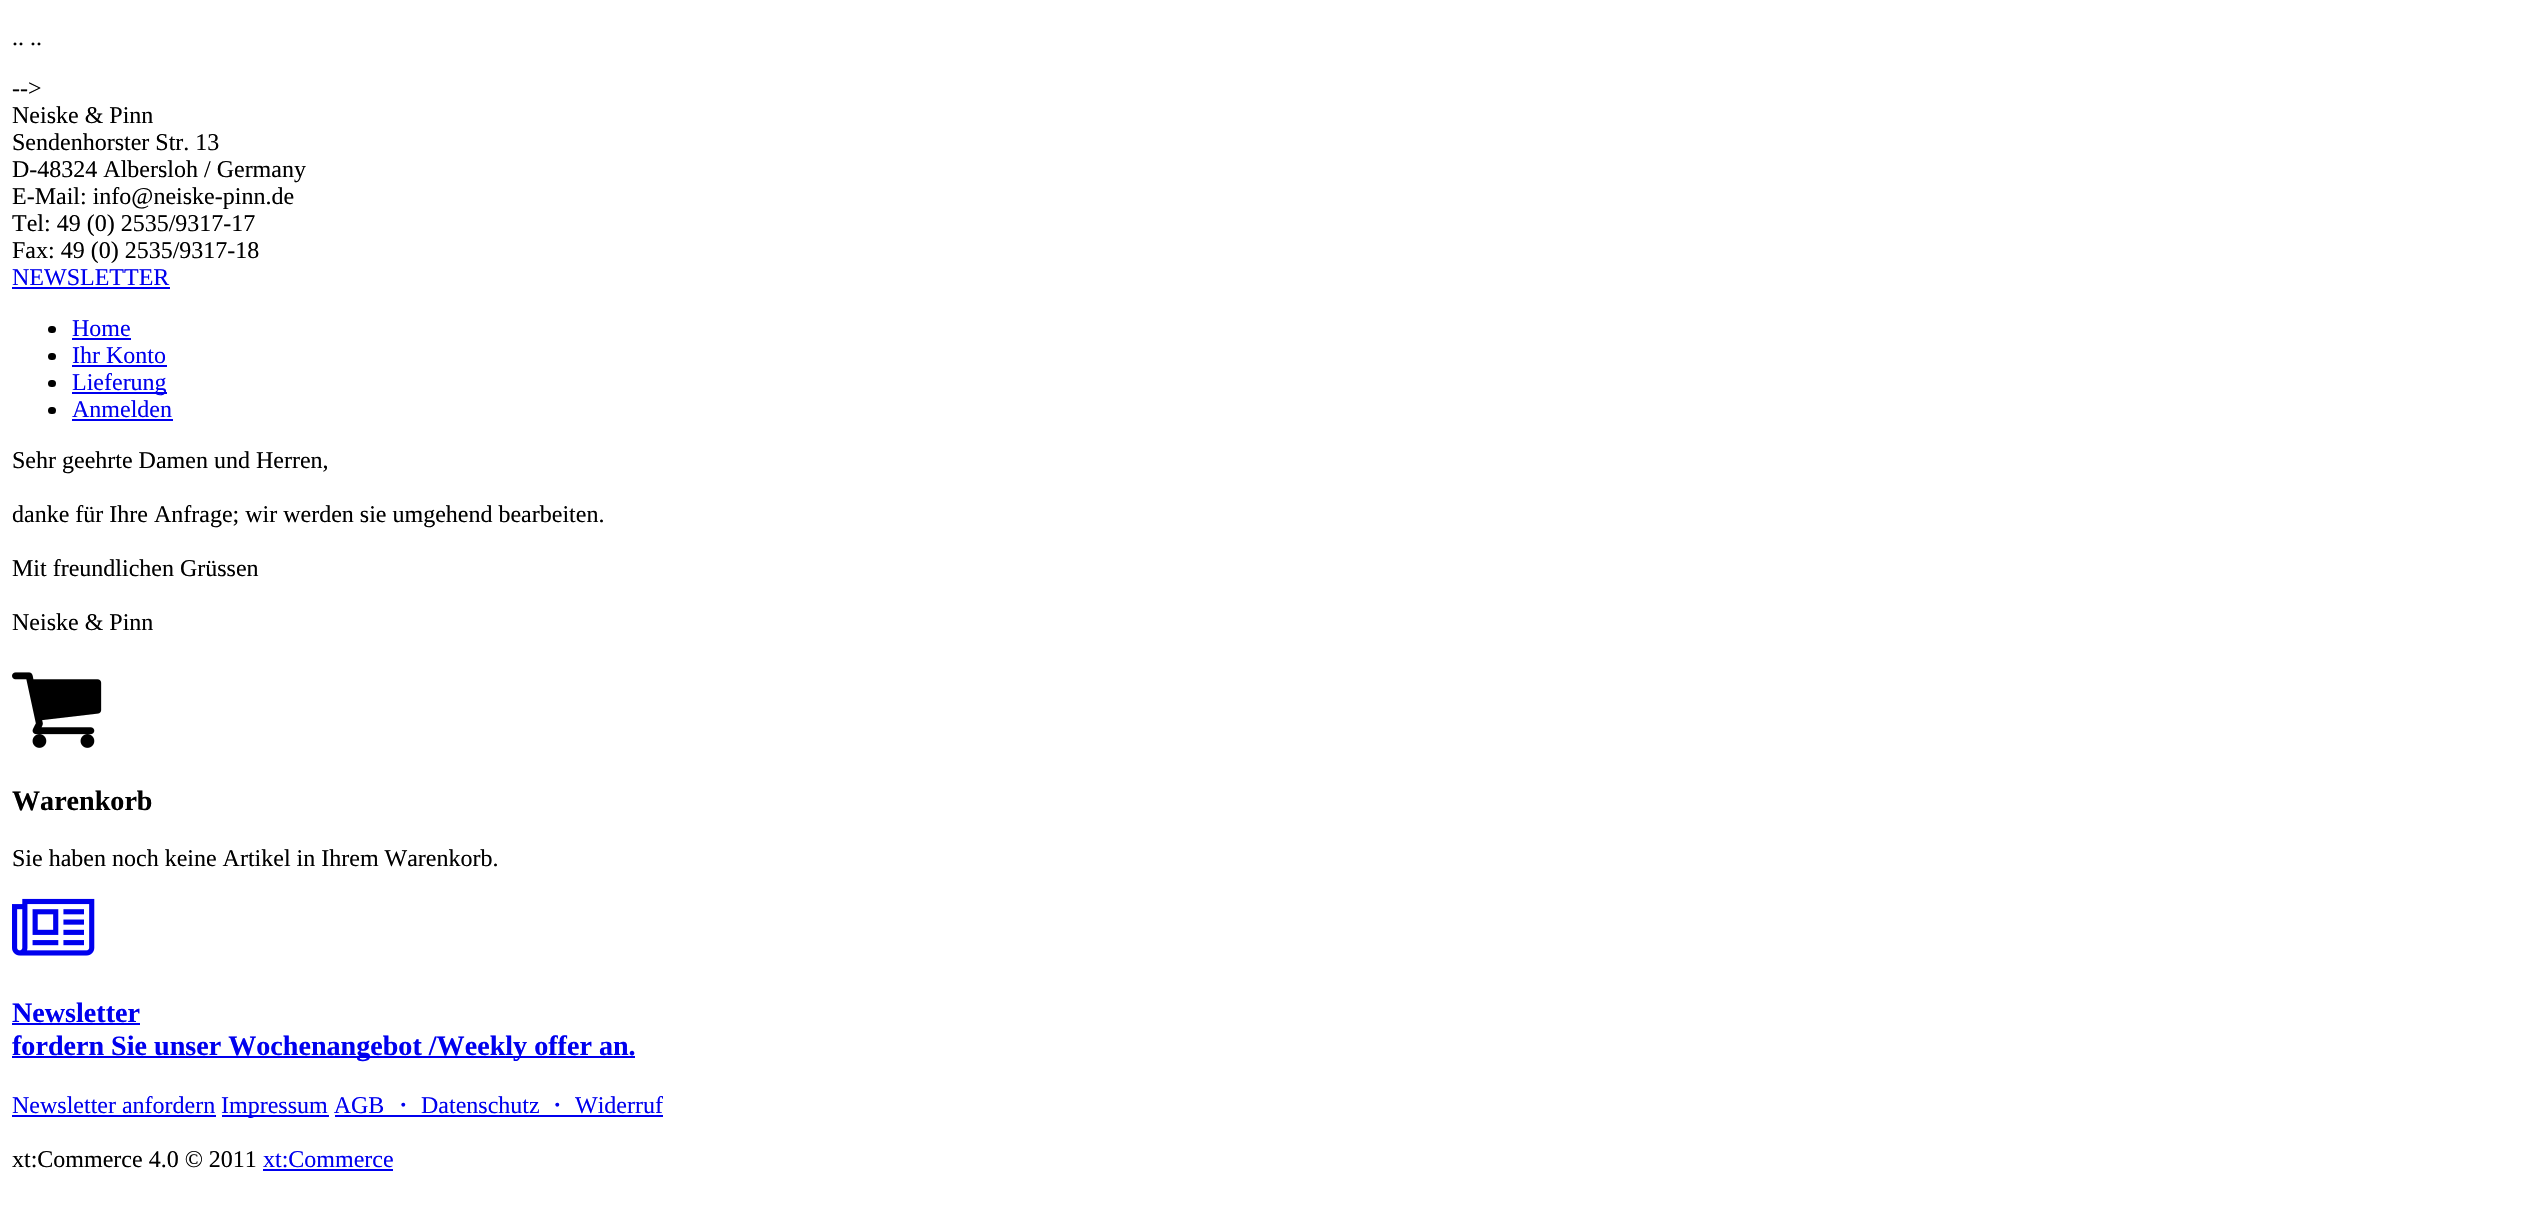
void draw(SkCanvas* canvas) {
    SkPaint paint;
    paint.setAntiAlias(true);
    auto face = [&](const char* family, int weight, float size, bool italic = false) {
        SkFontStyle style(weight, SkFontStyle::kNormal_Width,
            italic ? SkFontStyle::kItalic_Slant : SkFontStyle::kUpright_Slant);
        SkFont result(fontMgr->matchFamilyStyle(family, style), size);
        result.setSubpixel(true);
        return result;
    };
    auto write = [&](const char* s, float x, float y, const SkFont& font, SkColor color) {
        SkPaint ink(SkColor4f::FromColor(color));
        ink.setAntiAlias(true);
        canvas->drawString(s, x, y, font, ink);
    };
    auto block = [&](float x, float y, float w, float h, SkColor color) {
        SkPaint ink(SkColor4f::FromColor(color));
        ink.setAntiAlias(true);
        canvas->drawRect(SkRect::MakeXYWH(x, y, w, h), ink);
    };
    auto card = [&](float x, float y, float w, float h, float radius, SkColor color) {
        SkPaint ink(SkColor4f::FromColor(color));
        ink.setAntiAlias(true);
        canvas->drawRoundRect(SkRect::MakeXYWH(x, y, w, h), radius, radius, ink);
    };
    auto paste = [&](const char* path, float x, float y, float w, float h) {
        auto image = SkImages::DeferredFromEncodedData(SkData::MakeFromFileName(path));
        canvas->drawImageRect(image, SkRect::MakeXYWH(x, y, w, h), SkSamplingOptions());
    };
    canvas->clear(SK_ColorWHITE);
    auto kFont1 = face("Liberation Serif", 400, 24);
    write(".. ..", 12, 45, kFont1, SK_ColorBLACK);
    write("-->", 12, 96, kFont1, SK_ColorBLACK);
    write("Neiske & Pinn", 12, 123, kFont1, SK_ColorBLACK);
    write("Sendenhorster Str. 13", 12, 150, kFont1, SK_ColorBLACK);
    write("D-48324 Albersloh / Germany", 12, 177, kFont1, SK_ColorBLACK);
    write("E-Mail: info@neiske-pinn.de", 12, 204, kFont1, SK_ColorBLACK);
    write("Tel: 49 (0) 2535/9317-17", 12, 231, kFont1, SK_ColorBLACK);
    write("Fax: 49 (0) 2535/9317-18", 12, 258, kFont1, SK_ColorBLACK);
    write("NEWSLETTER", 12, 285, kFont1, SkColorSetRGB(0, 0, 238));
    block(12, 287, 158, 2, SkColorSetRGB(0, 0, 238));
    card(48, 326, 8, 7, 3.5f, SK_ColorBLACK);
    write("Home", 72, 336, kFont1, SkColorSetRGB(0, 0, 238));
    block(72, 338, 59, 2, SkColorSetRGB(0, 0, 238));
    card(48, 353, 8, 7, 3.5f, SK_ColorBLACK);
    write("Ihr Konto", 72, 363, kFont1, SkColorSetRGB(0, 0, 238));
    block(72, 365, 95, 2, SkColorSetRGB(0, 0, 238));
    card(48, 380, 8, 7, 3.5f, SK_ColorBLACK);
    block(72, 392, 95, 2, SkColorSetRGB(0, 0, 238));
    write("Lieferung", 72, 390, kFont1, SkColorSetRGB(0, 0, 238));
    card(48, 407, 8, 7, 3.5f, SK_ColorBLACK);
    write("Anmelden", 72, 417, kFont1, SkColorSetRGB(0, 0, 238));
    block(72, 419, 101, 2, SkColorSetRGB(0, 0, 238));
    write("Sehr geehrte Damen und Herren,", 12, 468, kFont1, SK_ColorBLACK);
    write("danke für Ihre Anfrage; wir werden sie umgehend bearbeiten.", 12, 522, kFont1, SK_ColorBLACK);
    write("Mit freundlichen Grüssen", 12, 576, kFont1, SK_ColorBLACK);
    write("Neiske & Pinn", 12, 630, kFont1, SK_ColorBLACK);
    paste("pic1.png", 12, 672, 90, 76);
    auto kFont2 = face("Liberation Serif", 700, 28.1f);
    write("Warenkorb", 12, 810, kFont2, SK_ColorBLACK);
    write("Sie haben noch keine Artikel in Ihrem Warenkorb.", 12, 866, kFont1, SK_ColorBLACK);
    paste("pic2.png", 12, 898, 83, 58);
    write("Newsletter", 12, 1022, kFont2, SkColorSetRGB(0, 0, 238));
    block(12, 1023, 128, 2, SkColorSetRGB(0, 0, 238));
    block(12, 1056, 623, 2, SkColorSetRGB(0, 0, 238));
    write("fordern Sie unser Wochenangebot /Weekly offer an.", 12, 1055, kFont2, SkColorSetRGB(0, 0, 238));
    write("Newsletter anfordern", 12, 1113, kFont1, SkColorSetRGB(0, 0, 238));
    block(12, 1115, 204, 2, SkColorSetRGB(0, 0, 238));
    block(222, 1115, 107, 2, SkColorSetRGB(0, 0, 238));
    write("Impressum AGB", 221, 1113, kFont1, SkColorSetRGB(0, 0, 238));
    auto kFont3 = face("WenQuanYi Zen Hei", 500, 24);
    write("・", 391, 1113, kFont3, SkColorSetRGB(0, 0, 238));
    write("Datenschutz", 421, 1113, kFont1, SkColorSetRGB(0, 0, 238));
    block(335, 1115, 328, 2, SkColorSetRGB(0, 0, 238));
    write("・", 545, 1113, kFont3, SkColorSetRGB(0, 0, 238));
    write("Widerruf", 575, 1113, kFont1, SkColorSetRGB(0, 0, 238));
    write("xt:Commerce 4.0 © 2011", 12, 1167, kFont1, SK_ColorBLACK);
    write("xt:Commerce", 263, 1167, kFont1, SkColorSetRGB(0, 0, 238));
    block(263, 1169, 130, 2, SkColorSetRGB(0, 0, 238));
}
